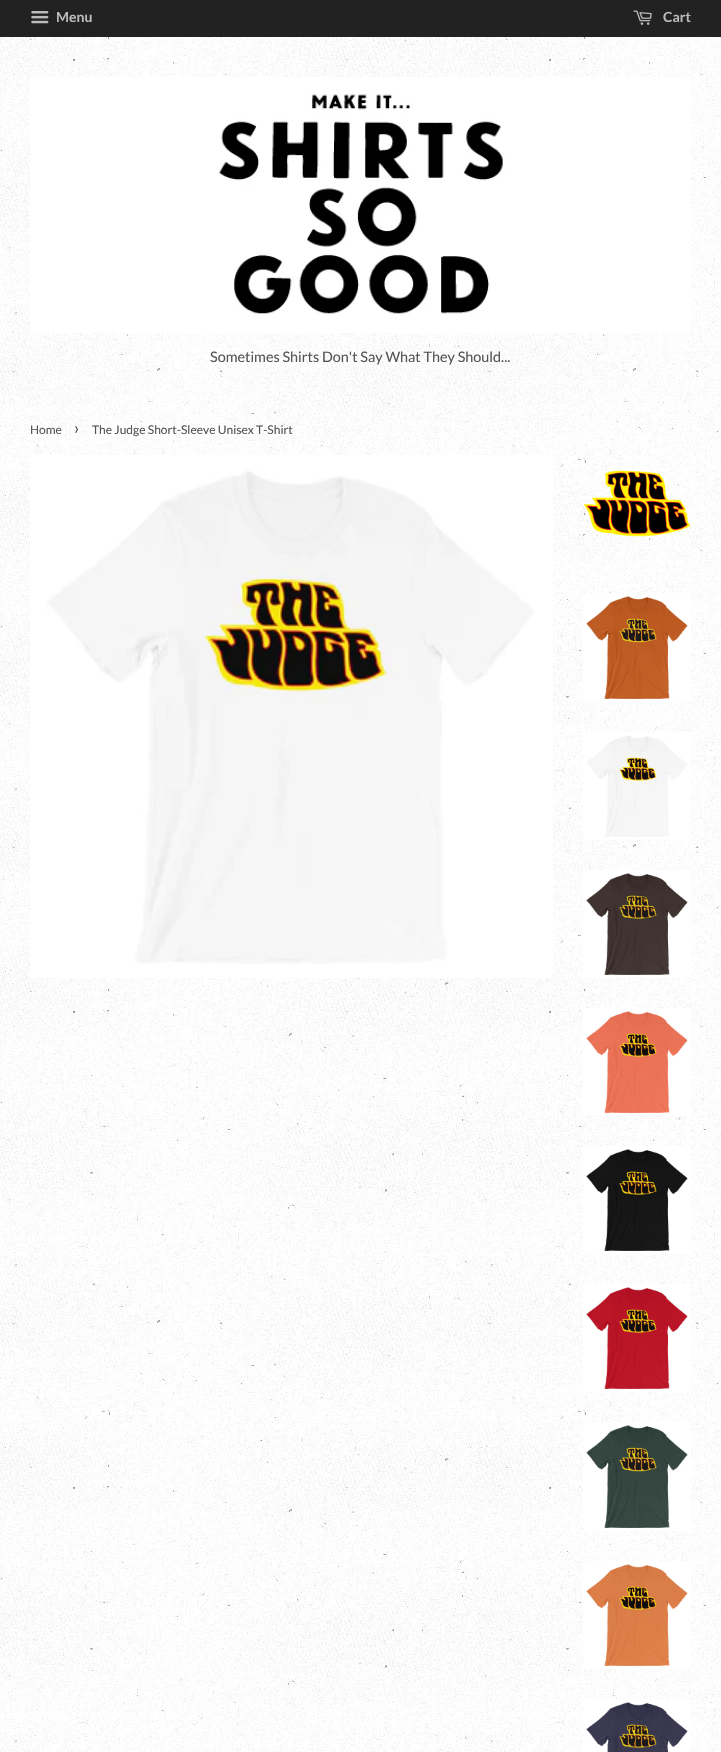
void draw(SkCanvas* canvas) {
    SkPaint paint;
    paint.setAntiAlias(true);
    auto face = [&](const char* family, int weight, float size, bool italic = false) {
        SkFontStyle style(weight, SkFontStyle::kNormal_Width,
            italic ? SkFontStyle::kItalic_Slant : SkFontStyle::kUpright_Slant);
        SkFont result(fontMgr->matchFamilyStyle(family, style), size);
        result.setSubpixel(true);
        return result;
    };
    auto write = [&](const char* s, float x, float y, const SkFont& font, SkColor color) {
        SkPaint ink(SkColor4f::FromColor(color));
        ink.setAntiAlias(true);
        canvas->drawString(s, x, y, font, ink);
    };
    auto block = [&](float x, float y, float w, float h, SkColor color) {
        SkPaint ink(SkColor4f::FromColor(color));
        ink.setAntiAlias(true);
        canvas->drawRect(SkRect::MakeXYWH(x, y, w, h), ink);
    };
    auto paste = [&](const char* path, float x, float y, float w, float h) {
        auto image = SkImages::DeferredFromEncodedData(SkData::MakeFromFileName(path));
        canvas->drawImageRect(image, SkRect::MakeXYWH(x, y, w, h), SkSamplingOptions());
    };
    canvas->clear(SK_ColorWHITE);
    paste("pic1.png", 0, 37, 721, 1715);
    block(0, 0, 721, 37, SkColorSetRGB(34, 34, 34));
    paste("pic2.png", 31, 11, 18, 13);
    auto kFont1 = face("Lato", 700, 14);
    write("Menu", 56, 22, kFont1, SkColorSetRGB(187, 187, 187));
    paste("pic3.png", 633, 10, 19, 15);
    write("Cart", 663, 22, kFont1, SkColorSetRGB(187, 187, 187));
    paste("pic4.png", 30, 77, 661, 256);
    auto kFont2 = face("Lato", 400, 14.4f);
    write("Sometimes Shirts Don't Say What They Should...", 210, 362, kFont2, SkColorSetRGB(85, 85, 85));
    auto kFont3 = face("Lato", 400, 12);
    write("Home", 30, 434, kFont3, SkColorSetRGB(85, 85, 85));
    auto kFont4 = face("Lato", 400, 17);
    write("›", 74, 434, kFont4, SkColorSetRGB(85, 85, 85));
    write("The Judge Short-Sleeve Unisex T-Shirt", 92, 434, kFont3, SkColorSetRGB(85, 85, 85));
    paste("pic5.png", 30, 455, 523, 523);
    paste("pic6.png", 583, 470, 108, 67);
    paste("pic7.png", 583, 593, 108, 109);
    paste("pic8.png", 583, 732, 108, 108);
    paste("pic9.png", 583, 870, 108, 108);
    paste("pic10.png", 583, 1008, 108, 108);
    paste("pic11.png", 583, 1146, 108, 108);
    paste("pic12.png", 583, 1284, 108, 108);
    paste("pic13.png", 583, 1422, 108, 109);
    paste("pic14.png", 583, 1561, 108, 108);
    paste("pic15.png", 583, 1699, 108, 53);
}
